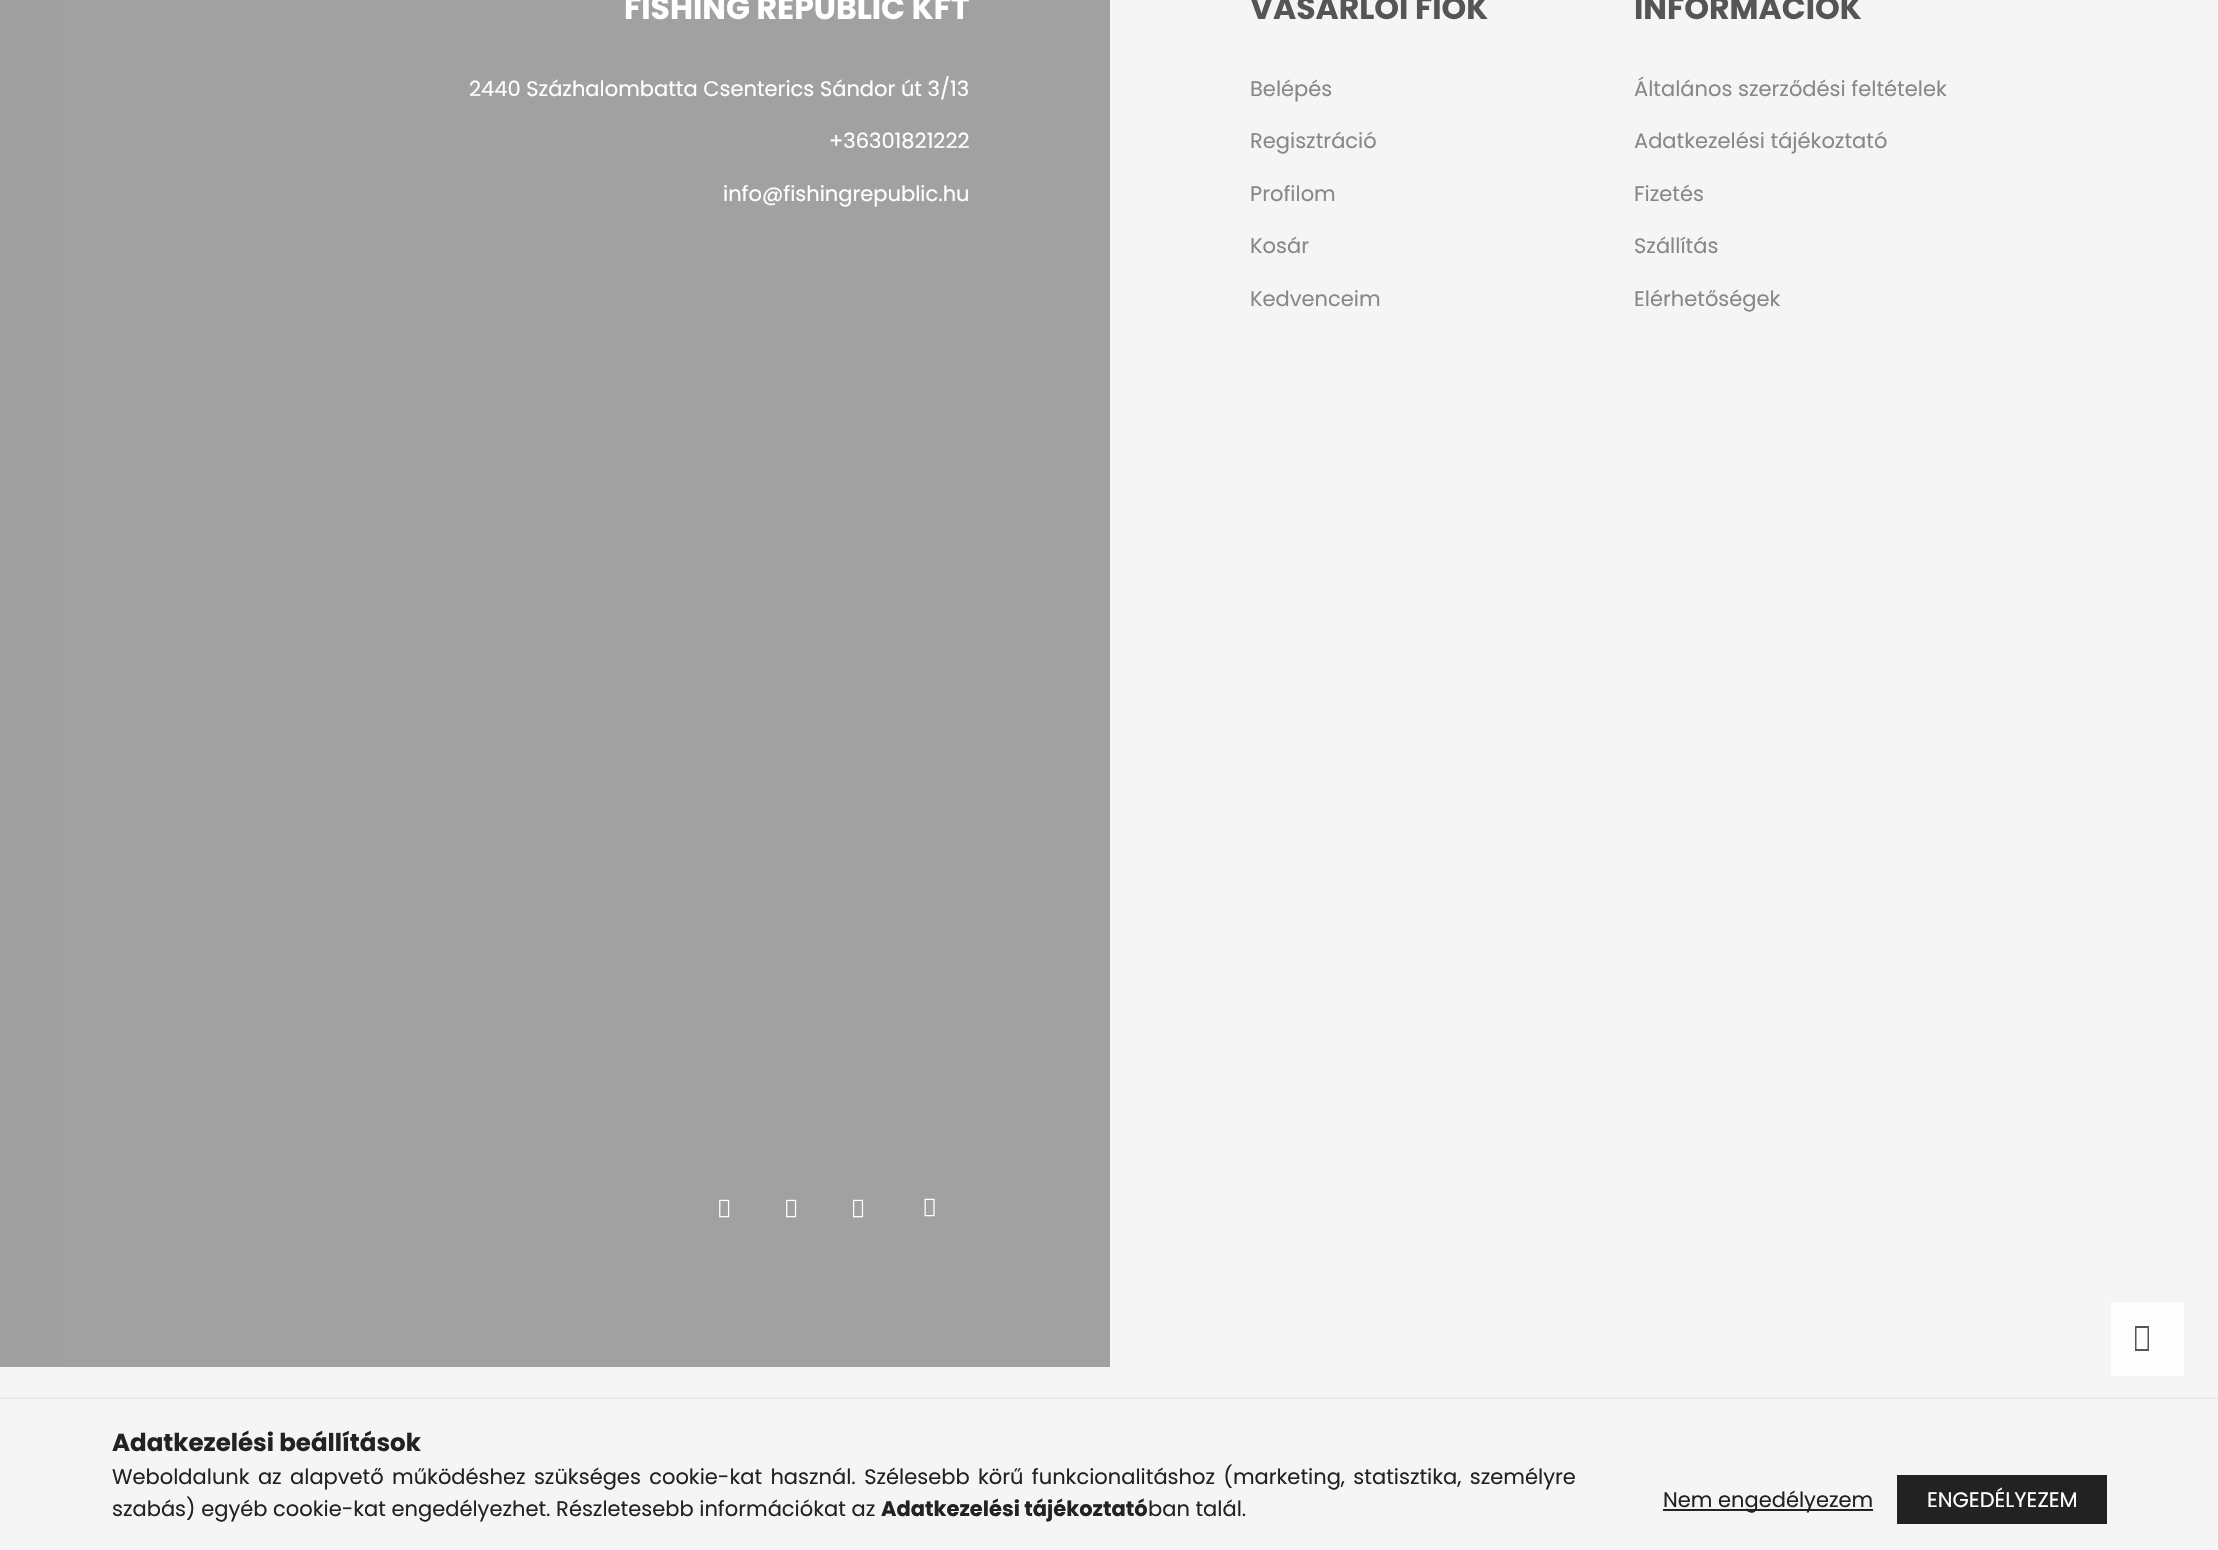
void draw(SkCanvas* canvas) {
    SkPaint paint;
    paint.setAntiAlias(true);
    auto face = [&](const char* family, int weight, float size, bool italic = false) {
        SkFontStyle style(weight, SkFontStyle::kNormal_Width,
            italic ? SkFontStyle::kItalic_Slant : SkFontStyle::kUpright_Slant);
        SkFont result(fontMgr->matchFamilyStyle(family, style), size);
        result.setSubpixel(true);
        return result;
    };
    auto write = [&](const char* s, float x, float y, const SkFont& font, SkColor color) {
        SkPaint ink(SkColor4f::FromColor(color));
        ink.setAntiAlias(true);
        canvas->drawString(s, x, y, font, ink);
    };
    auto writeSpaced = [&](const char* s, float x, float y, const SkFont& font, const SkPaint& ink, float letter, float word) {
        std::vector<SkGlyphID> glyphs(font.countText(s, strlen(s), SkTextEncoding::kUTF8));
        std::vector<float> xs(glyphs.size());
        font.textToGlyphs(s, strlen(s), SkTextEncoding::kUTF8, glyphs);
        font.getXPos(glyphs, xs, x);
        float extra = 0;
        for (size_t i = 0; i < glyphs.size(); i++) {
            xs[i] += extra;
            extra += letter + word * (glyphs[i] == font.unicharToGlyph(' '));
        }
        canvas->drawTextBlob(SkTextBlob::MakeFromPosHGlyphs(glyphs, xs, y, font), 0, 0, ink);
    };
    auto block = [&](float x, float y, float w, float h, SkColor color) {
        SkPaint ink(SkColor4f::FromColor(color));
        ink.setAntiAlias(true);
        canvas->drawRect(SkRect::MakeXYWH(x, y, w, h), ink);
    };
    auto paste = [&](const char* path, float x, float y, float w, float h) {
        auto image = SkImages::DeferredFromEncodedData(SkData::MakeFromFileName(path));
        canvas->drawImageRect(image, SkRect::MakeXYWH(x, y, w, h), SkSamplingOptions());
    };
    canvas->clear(SkColorSetRGB(245, 245, 245));
    block(61, 0, 1049, 1367, SkColorSetRGB(161, 161, 161));
    block(0, 0, 61, 1367, SkColorSetRGB(160, 160, 160));
    auto kFont1 = face("Poppins", 700, 31.5f);
    write("FISHING REPUBLIC KFT", 624, 19, kFont1, SK_ColorWHITE);
    auto kFont2 = face("Poppins", 400, 21);
    write("2440 Százhalombatta Csenterics Sándor út 3/13", 469, 96, kFont2, SK_ColorWHITE);
    write("+36301821222", 829, 148, kFont2, SK_ColorWHITE);
    write("info@fishingrepublic.hu", 723, 201, kFont2, SK_ColorWHITE);
    paste("pic1.png", 719, 1199, 11, 19);
    paste("pic2.png", 786, 1199, 11, 19);
    paste("pic3.png", 853, 1199, 11, 19);
    paste("pic4.png", 924, 1198, 11, 19);
    write("VÁSÁRLÓI FIÓK", 1250, 19, kFont1, SkColorSetRGB(85, 85, 85));
    write("Belépés", 1250, 96, kFont2, SkColorSetRGB(136, 136, 136));
    write("Regisztráció", 1250, 148, kFont2, SkColorSetRGB(136, 136, 136));
    write("Profilom", 1250, 201, kFont2, SkColorSetRGB(136, 136, 136));
    write("Kosár", 1250, 253, kFont2, SkColorSetRGB(136, 136, 136));
    write("Kedvenceim", 1250, 306, kFont2, SkColorSetRGB(136, 136, 136));
    write("INFORMÁCIÓK", 1634, 19, kFont1, SkColorSetRGB(85, 85, 85));
    write("Általános szerződési feltételek", 1634, 96, kFont2, SkColorSetRGB(136, 136, 136));
    write("Adatkezelési tájékoztató", 1634, 148, kFont2, SkColorSetRGB(136, 136, 136));
    write("Fizetés", 1634, 201, kFont2, SkColorSetRGB(136, 136, 136));
    write("Szállítás", 1634, 253, kFont2, SkColorSetRGB(136, 136, 136));
    write("Elérhetőségek", 1634, 306, kFont2, SkColorSetRGB(136, 136, 136));
    block(2111, 1302, 73, 74, SkColorSetRGB(253, 253, 253));
    paint.setColor(SkColorSetRGB(85, 85, 85));
    canvas->drawPath(SkPathBuilder().moveTo(2135, 1351).lineTo(2135, 1326).lineTo(2149, 1326).lineTo(2149, 1351).close().moveTo(2136.5f, 1349).lineTo(2147.5f, 1349).lineTo(2147.5f, 1328).lineTo(2136.5f, 1328).close().detach(), paint);
    block(0, 1397, 2218, 2, SkColorSetRGB(234, 234, 234));
    auto kFont3 = face("Poppins", 700, 24.5f);
    write("Adatkezelési beállítások", 112, 1451, kFont3, SkColorSetRGB(34, 34, 34));
    paint.setColor(SkColorSetRGB(34, 34, 34));
    writeSpaced("Weboldalunk az alapvető működéshez szükséges cookie-kat használ. Szélesebb körű funkcionalitáshoz (marketing, statisztika, személyre", 112, 1484, kFont2, paint, 0, 2.75f);
    write("szabás) egyéb cookie-kat engedélyezhet. Részletesebb információkat az", 112, 1516, kFont2, SkColorSetRGB(34, 34, 34));
    auto kFont4 = face("Poppins", 700, 21);
    write("Adatkezelési tájékoztató", 881, 1516, kFont4, SkColorSetRGB(34, 34, 34));
    write("ban talál.", 1148, 1516, kFont2, SkColorSetRGB(34, 34, 34));
    block(1663, 1509, 210, 2, SkColorSetRGB(34, 34, 34));
    write("Nem engedélyezem", 1663, 1507, kFont2, SkColorSetRGB(34, 34, 34));
    {
        const SkColor colors[] = {SkColorSetRGB(85, 85, 85), SkColorSetRGB(217, 188, 1), SkColorSetRGB(34, 34, 34), SkColorSetRGB(34, 34, 34)};
        const float stops[] = {0, 0.33f, 0.67f, 1};
        const SkPoint ends[] = {{1477, 1500}, {2107, 1500}};
        paint.setShader(SkGradientShader::MakeLinear(ends, colors, stops, 4, SkTileMode::kClamp));
        paint.setAlpha(255);
    }
    canvas->drawRect(SkRect::MakeXYWH(1897, 1475, 210, 49), paint);
    write("ENGEDÉLYEZEM", 1927, 1507, kFont2, SK_ColorWHITE);
}
